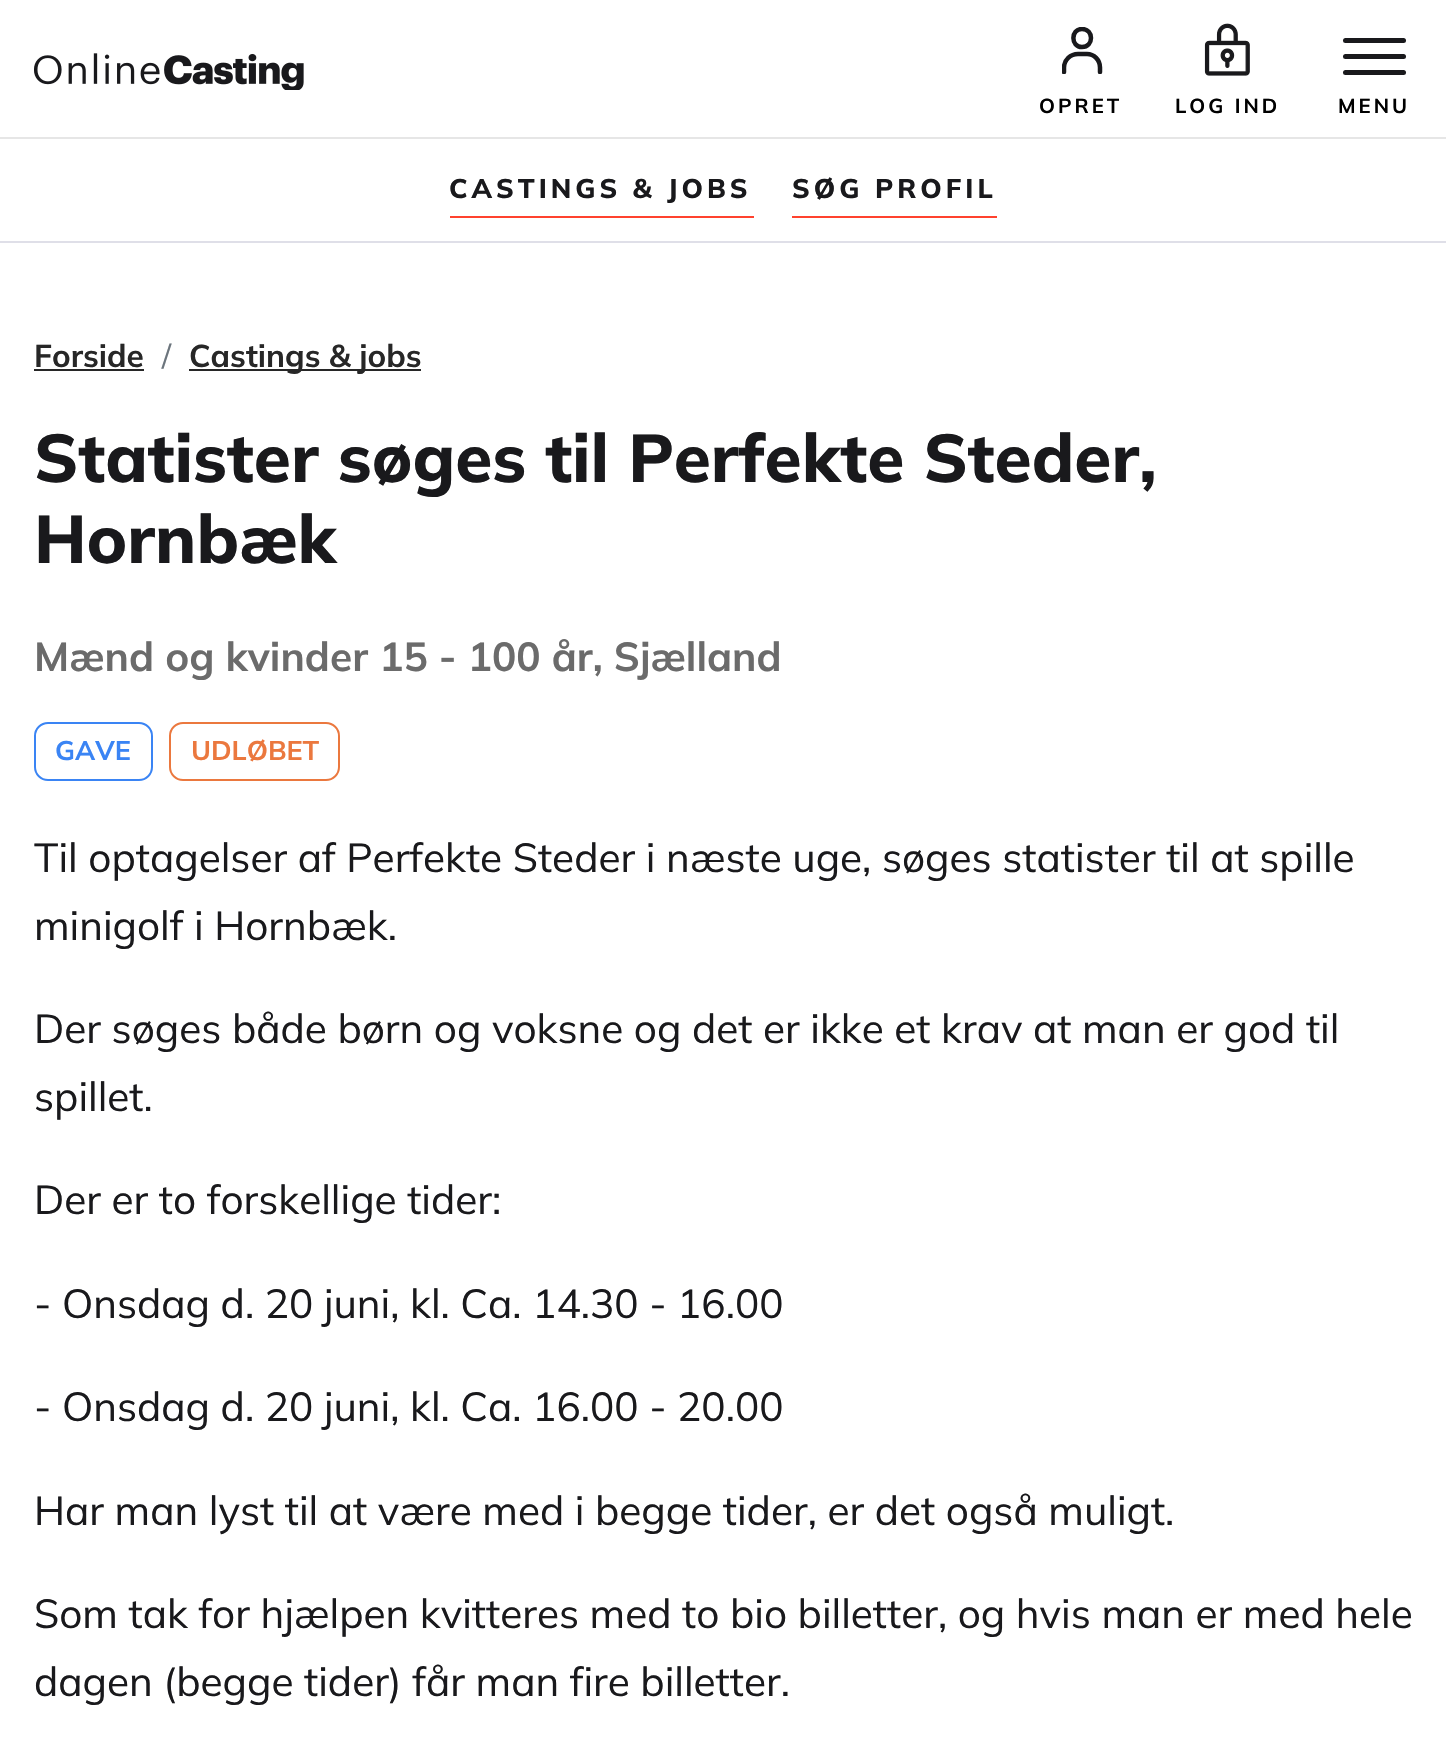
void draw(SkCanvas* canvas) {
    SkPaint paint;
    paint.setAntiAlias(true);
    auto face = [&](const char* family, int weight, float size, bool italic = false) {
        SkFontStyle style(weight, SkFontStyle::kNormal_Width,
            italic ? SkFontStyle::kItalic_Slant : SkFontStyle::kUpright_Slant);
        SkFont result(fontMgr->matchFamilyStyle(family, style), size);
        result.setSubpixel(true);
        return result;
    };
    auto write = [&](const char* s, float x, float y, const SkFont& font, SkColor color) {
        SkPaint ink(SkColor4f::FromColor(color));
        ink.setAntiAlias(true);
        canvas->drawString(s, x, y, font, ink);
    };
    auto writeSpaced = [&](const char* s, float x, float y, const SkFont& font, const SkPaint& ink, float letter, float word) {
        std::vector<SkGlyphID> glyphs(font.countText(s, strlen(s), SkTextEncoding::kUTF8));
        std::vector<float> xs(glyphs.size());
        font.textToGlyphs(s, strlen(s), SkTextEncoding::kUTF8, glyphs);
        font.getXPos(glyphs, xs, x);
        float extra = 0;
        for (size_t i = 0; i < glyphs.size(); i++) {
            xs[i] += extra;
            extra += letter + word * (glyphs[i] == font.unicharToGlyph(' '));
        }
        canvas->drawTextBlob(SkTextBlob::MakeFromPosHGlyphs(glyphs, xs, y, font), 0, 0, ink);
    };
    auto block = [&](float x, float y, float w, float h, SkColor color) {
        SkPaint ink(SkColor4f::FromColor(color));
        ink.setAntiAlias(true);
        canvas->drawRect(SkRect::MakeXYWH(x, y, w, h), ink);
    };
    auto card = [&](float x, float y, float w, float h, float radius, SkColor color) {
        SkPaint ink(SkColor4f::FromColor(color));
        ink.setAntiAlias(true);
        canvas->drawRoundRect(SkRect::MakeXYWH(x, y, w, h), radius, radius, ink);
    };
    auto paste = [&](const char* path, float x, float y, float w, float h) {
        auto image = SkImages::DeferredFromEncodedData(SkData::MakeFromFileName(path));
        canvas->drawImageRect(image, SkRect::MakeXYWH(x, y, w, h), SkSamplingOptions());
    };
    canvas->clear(SK_ColorWHITE);
    block(0, 137, 1446, 2, SkColorSetRGB(230, 230, 230));
    paste("pic1.png", 34, 53, 270, 37);
    canvas->save();
    canvas->clipRect(SkRect::MakeXYWH(1062, 27, 41, 47));
    paint.setStyle(SkPaint::kStroke_Style);
    paint.setStrokeWidth(4.5f);
    paint.setStrokeCap(SkPaint::kRound_Cap);
    paint.setColor(SkColorSetRGB(25, 25, 28));
    canvas->drawPath(SkPathBuilder().moveTo(1064, 72).lineTo(1064, 67.5f).cubicTo(1064, 60, 1070.5f, 54, 1078, 54).lineTo(1087, 54).cubicTo(1094, 54, 1100, 60, 1100, 67.5f).lineTo(1100, 72).moveTo(1082, 47).cubicTo(1070.5f, 47, 1070.5f, 29, 1082, 29).cubicTo(1094, 29, 1094, 47, 1082, 47).close().detach(), paint);
    canvas->restore();
    auto kFont1 = face("Mulish", 700, 20.25f);
    paint.setStyle(SkPaint::kFill_Style);
    paint.setColor(SK_ColorBLACK);
    writeSpaced("OPRET", 1039, 113, kFont1, paint, 3, 0);
    paste("pic2.png", 1204, 23, 46, 53);
    writeSpaced("LOG IND", 1175, 113, kFont1, paint, 3, 0);
    card(1343, 38, 63, 5, 2.5f, SkColorSetRGB(25, 25, 28));
    card(1343, 54, 63, 5, 2.5f, SkColorSetRGB(25, 25, 28));
    card(1343, 70, 63, 5, 2.5f, SkColorSetRGB(25, 25, 28));
    writeSpaced("MENU", 1338, 113, kFont1, paint, 3, 0);
    block(0, 241, 1446, 2, SkColorSetRGB(223, 223, 232));
    auto kFont2 = face("Mulish", 800, 27);
    paint.setColor(SkColorSetRGB(25, 25, 28));
    writeSpaced("CASTINGS & JOBS", 449, 198, kFont2, paint, 4, 0);
    block(450, 216, 304, 2, SkColorSetRGB(255, 66, 46));
    writeSpaced("SØG PROFIL", 792, 198, kFont2, paint, 4, 0);
    block(792, 216, 205, 2, SkColorSetRGB(255, 66, 46));
    auto kFont3 = face("Mulish", 700, 31.5f);
    write("Forside", 34, 367, kFont3, SkColorSetRGB(39, 39, 39));
    block(34, 369, 110, 2, SkColorSetRGB(39, 39, 39));
    auto kFont4 = face("Mulish", 400, 31.5f);
    write("/", 162, 367, kFont4, SkColorSetRGB(108, 117, 125));
    block(189, 369, 232, 2, SkColorSetRGB(39, 39, 39));
    write("Castings & jobs", 189, 367, kFont3, SkColorSetRGB(39, 39, 39));
    auto kFont5 = face("Mulish", 800, 67.5f);
    write("Statister søges til Perfekte Steder,", 34, 482, kFont5, SkColorSetRGB(25, 25, 28));
    write("Hornbæk", 34, 563, kFont5, SkColorSetRGB(25, 25, 28));
    auto kFont6 = face("Mulish", 700, 40.5f);
    write("Mænd og kvinder 15 - 100 år, Sjælland", 34, 671, kFont6, SkColorSetRGB(107, 107, 107));
    paint.setStyle(SkPaint::kStroke_Style);
    paint.setStrokeWidth(2);
    paint.setStrokeCap(SkPaint::kButt_Cap);
    paint.setColor(SkColorSetRGB(58, 132, 244));
    canvas->drawRoundRect(SkRect::MakeXYWH(35, 723, 117, 57), 13, 13, paint);
    auto kFont7 = face("Mulish", 700, 27);
    write("GAVE", 55, 760, kFont7, SkColorSetRGB(58, 132, 244));
    paint.setColor(SkColorSetRGB(235, 120, 62));
    canvas->drawRoundRect(SkRect::MakeXYWH(170, 723, 169, 57), 13, 13, paint);
    write("UDLØBET", 191, 760, kFont7, SkColorSetRGB(235, 120, 62));
    auto kFont8 = face("Mulish", 400, 40.5f);
    write("Til optagelser af Perfekte Steder i næste uge, søges statister til at spille", 34, 872, kFont8, SkColorSetRGB(25, 25, 28));
    write("minigolf i Hornbæk.", 34, 940, kFont8, SkColorSetRGB(25, 25, 28));
    write("Der søges både børn og voksne og det er ikke et krav at man er god til", 34, 1043, kFont8, SkColorSetRGB(25, 25, 28));
    write("spillet.", 34, 1111, kFont8, SkColorSetRGB(25, 25, 28));
    write("Der er to forskellige tider:", 34, 1214, kFont8, SkColorSetRGB(25, 25, 28));
    write("- Onsdag d. 20 juni, kl. Ca. 14.30 - 16.00", 34, 1318, kFont8, SkColorSetRGB(25, 25, 28));
    write("- Onsdag d. 20 juni, kl. Ca. 16.00 - 20.00", 34, 1421, kFont8, SkColorSetRGB(25, 25, 28));
    write("Har man lyst til at være med i begge tider, er det også muligt.", 34, 1525, kFont8, SkColorSetRGB(25, 25, 28));
    write("Som tak for hjælpen kvitteres med to bio billetter, og hvis man er med hele", 34, 1628, kFont8, SkColorSetRGB(25, 25, 28));
    write("dagen (begge tider) får man fire billetter.", 34, 1696, kFont8, SkColorSetRGB(25, 25, 28));
}
